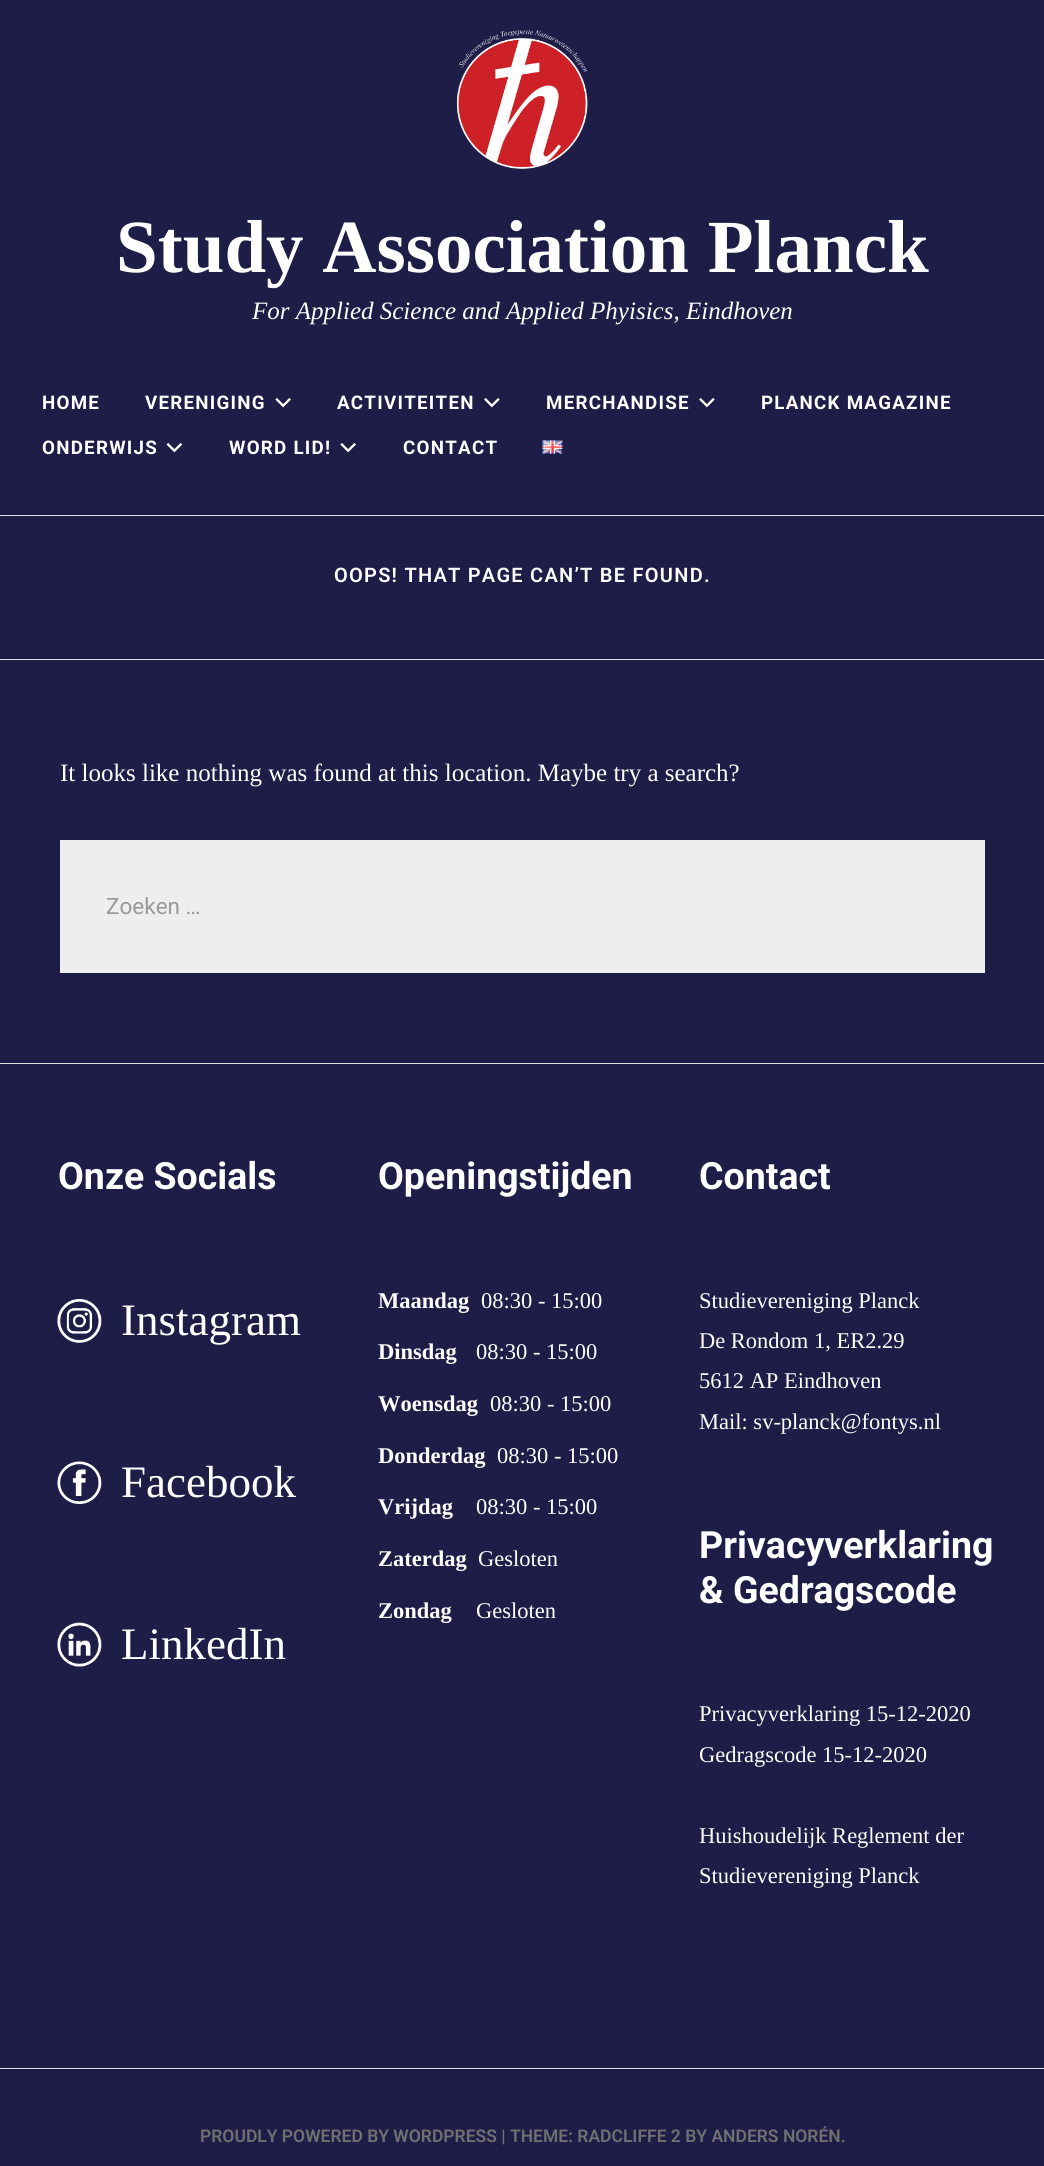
import math
import cairo


def write_spaced(ctx, x, y, s, letter, word):
	ctx.move_to(x, y)
	for ch in s:
		ctx.show_text(ch)
		ctx.rel_move_to(letter + word * (ch == ' '), 0)

def paste(ctx, path, x, y, w, h):
	ctx.save()
	ctx.set_source_surface(cairo.ImageSurface.create_from_png(path), x, y)
	ctx.rectangle(x, y, w, h)
	ctx.fill()
	ctx.restore()

def draw(ctx):
	ctx.set_source_rgb(0.118, 0.114, 0.278)
	ctx.paint()
	paste(ctx, 'media/1.png', 456, 30, 132, 139)
	ctx.select_font_face('Liberation Serif', cairo.FONT_SLANT_NORMAL, cairo.FONT_WEIGHT_BOLD)
	ctx.set_font_size(75)
	ctx.set_source_rgb(1, 1, 1)
	ctx.move_to(116, 272)
	ctx.show_text('Study Association Planck')
	ctx.select_font_face('Liberation Serif', cairo.FONT_SLANT_ITALIC)
	ctx.set_font_size(25)
	ctx.move_to(252, 319)
	ctx.show_text('For Applied Science and Applied Phyisics, Eindhoven')
	ctx.select_font_face('Roboto', cairo.FONT_SLANT_NORMAL, cairo.FONT_WEIGHT_BOLD)
	ctx.set_font_size(18.75)
	write_spaced(ctx, 42, 409, 'HOME', 1.25, 0)
	write_spaced(ctx, 145, 409, 'VERENIGING', 1.25, 0)
	paste(ctx, 'media/2.png', 275, 398, 16, 10)
	write_spaced(ctx, 337, 409, 'ACTIVITEITEN', 1.25, 0)
	paste(ctx, 'media/3.png', 484, 398, 16, 10)
	write_spaced(ctx, 546, 409, 'MERCHANDISE', 1.25, 0)
	paste(ctx, 'media/3.png', 699, 398, 16, 10)
	write_spaced(ctx, 761, 409, 'PLANCK MAGAZINE', 1.25, 0)
	write_spaced(ctx, 42, 454, 'ONDERWIJS', 1.25, 0)
	paste(ctx, 'media/4.png', 166, 443, 17, 10)
	write_spaced(ctx, 229, 454, 'WORD LID!', 1.25, 0)
	paste(ctx, 'media/2.png', 340, 443, 16, 10)
	write_spaced(ctx, 403, 454, 'CONTACT', 1.25, 0)
	paste(ctx, 'media/5.png', 542, 440, 21, 14)
	ctx.set_source_rgb(0.867, 0.867, 0.867)
	ctx.rectangle(0, 515, 1044, 1)
	ctx.fill()
	ctx.rectangle(0, 659, 1044, 1)
	ctx.fill()
	ctx.select_font_face('Roboto SemiBold')
	ctx.set_font_size(20)
	ctx.set_source_rgb(1, 1, 1)
	write_spaced(ctx, 334, 582, 'OOPS! THAT PAGE CAN’T BE FOUND.', 1.25, 0)
	ctx.select_font_face('Liberation Serif')
	ctx.set_font_size(25)
	ctx.move_to(60, 781)
	ctx.show_text('It looks like nothing was found at this location. Maybe try a search?')
	ctx.set_source_rgb(0.933, 0.933, 0.933)
	ctx.rectangle(60, 840, 925, 133)
	ctx.fill()
	ctx.select_font_face('Roboto')
	ctx.set_font_size(22.5)
	ctx.set_source_rgb(0.6, 0.6, 0.6)
	ctx.move_to(106, 914)
	ctx.show_text('Zoeken …')
	ctx.set_source_rgb(0.867, 0.867, 0.867)
	ctx.rectangle(0, 1063, 1044, 1)
	ctx.fill()
	ctx.select_font_face('Roboto', cairo.FONT_SLANT_NORMAL, cairo.FONT_WEIGHT_BOLD)
	ctx.set_font_size(37.5)
	ctx.set_source_rgb(1, 1, 1)
	ctx.move_to(58, 1189)
	ctx.show_text('Onze Socials')
	paste(ctx, 'media/6.png', 57, 1299, 45, 44)
	ctx.select_font_face('Liberation Serif')
	ctx.set_font_size(45)
	ctx.move_to(121, 1335)
	ctx.show_text('Instagram')
	paste(ctx, 'media/7.png', 57, 1461, 45, 43)
	ctx.move_to(121, 1497)
	ctx.show_text('Facebook')
	paste(ctx, 'media/8.png', 57, 1622, 45, 45)
	ctx.move_to(121, 1659)
	ctx.show_text('LinkedIn')
	ctx.select_font_face('Roboto', cairo.FONT_SLANT_NORMAL, cairo.FONT_WEIGHT_BOLD)
	ctx.set_font_size(37.5)
	ctx.move_to(378, 1189)
	ctx.show_text('Openingstijden')
	ctx.select_font_face('Liberation Serif', cairo.FONT_SLANT_NORMAL, cairo.FONT_WEIGHT_BOLD)
	ctx.set_font_size(22.5)
	ctx.move_to(378, 1308)
	ctx.show_text('Maandag')
	ctx.select_font_face('Liberation Serif')
	ctx.move_to(481, 1308)
	ctx.show_text('08:30 - 15:00')
	ctx.select_font_face('Liberation Serif', cairo.FONT_SLANT_NORMAL, cairo.FONT_WEIGHT_BOLD)
	ctx.move_to(378, 1359)
	ctx.show_text('Dinsdag')
	ctx.select_font_face('Liberation Serif')
	ctx.move_to(476, 1359)
	ctx.show_text('08:30 - 15:00')
	ctx.select_font_face('Liberation Serif', cairo.FONT_SLANT_NORMAL, cairo.FONT_WEIGHT_BOLD)
	ctx.move_to(378, 1411)
	ctx.show_text('Woensdag')
	ctx.select_font_face('Liberation Serif')
	ctx.move_to(490, 1411)
	ctx.show_text('08:30 - 15:00')
	ctx.select_font_face('Liberation Serif', cairo.FONT_SLANT_NORMAL, cairo.FONT_WEIGHT_BOLD)
	ctx.move_to(378, 1463)
	ctx.show_text('Donderdag')
	ctx.select_font_face('Liberation Serif')
	ctx.move_to(497, 1463)
	ctx.show_text('08:30 - 15:00')
	ctx.select_font_face('Liberation Serif', cairo.FONT_SLANT_NORMAL, cairo.FONT_WEIGHT_BOLD)
	ctx.move_to(378, 1514)
	ctx.show_text('Vrijdag')
	ctx.select_font_face('Liberation Serif')
	ctx.move_to(476, 1514)
	ctx.show_text('08:30 - 15:00')
	ctx.select_font_face('Liberation Serif', cairo.FONT_SLANT_NORMAL, cairo.FONT_WEIGHT_BOLD)
	ctx.move_to(378, 1566)
	ctx.show_text('Zaterdag')
	ctx.select_font_face('Liberation Serif')
	ctx.move_to(478, 1566)
	ctx.show_text('Gesloten')
	ctx.select_font_face('Liberation Serif', cairo.FONT_SLANT_NORMAL, cairo.FONT_WEIGHT_BOLD)
	ctx.move_to(378, 1618)
	ctx.show_text('Zondag')
	ctx.select_font_face('Liberation Serif')
	ctx.move_to(476, 1618)
	ctx.show_text('Gesloten')
	ctx.select_font_face('Roboto', cairo.FONT_SLANT_NORMAL, cairo.FONT_WEIGHT_BOLD)
	ctx.set_font_size(37.5)
	ctx.move_to(699, 1189)
	ctx.show_text('Contact')
	ctx.select_font_face('Liberation Serif')
	ctx.set_font_size(22.5)
	for x, y, s in [
		(699, 1308, 'Studievereniging Planck'),
		(699, 1348, 'De Rondom 1, ER2.29'),
		(699, 1388, '5612 AP Eindhoven'),
		(699, 1429, 'Mail: sv-planck@fontys.nl'),
	]:
		ctx.move_to(x, y)
		ctx.show_text(s)
	ctx.select_font_face('Roboto', cairo.FONT_SLANT_NORMAL, cairo.FONT_WEIGHT_BOLD)
	ctx.set_font_size(37.5)
	ctx.move_to(699, 1558)
	ctx.show_text('Privacyverklaring')
	ctx.move_to(699, 1603)
	ctx.show_text('& Gedragscode')
	ctx.select_font_face('Liberation Serif')
	ctx.set_font_size(22.5)
	for x, y, s in [
		(699, 1721, 'Privacyverklaring 15-12-2020'),
		(699, 1762, 'Gedragscode 15-12-2020'),
		(699, 1843, 'Huishoudelijk Reglement der'),
		(699, 1883, 'Studievereniging Planck'),
	]:
		ctx.move_to(x, y)
		ctx.show_text(s)
	ctx.set_source_rgb(0.867, 0.867, 0.867)
	ctx.rectangle(0, 2068, 1044, 1)
	ctx.fill()
	ctx.select_font_face('Roboto SemiBold')
	ctx.set_font_size(17.5)
	ctx.set_source_rgb(0.439, 0.439, 0.439)
	ctx.move_to(200, 2142)
	ctx.show_text('PROUDLY POWERED BY WORDPRESS | THEME: RADCLIFFE 2 BY ANDERS NORÉN.')


surface = cairo.ImageSurface(cairo.FORMAT_RGB24, 1044, 2166)
ctx = cairo.Context(surface)
options = cairo.FontOptions()
options.set_hint_metrics(cairo.HINT_METRICS_OFF)
options.set_hint_style(cairo.HINT_STYLE_NONE)
ctx.set_font_options(options)
ctx.set_miter_limit(4)
draw(ctx)
surface.write_to_png('image.png')
